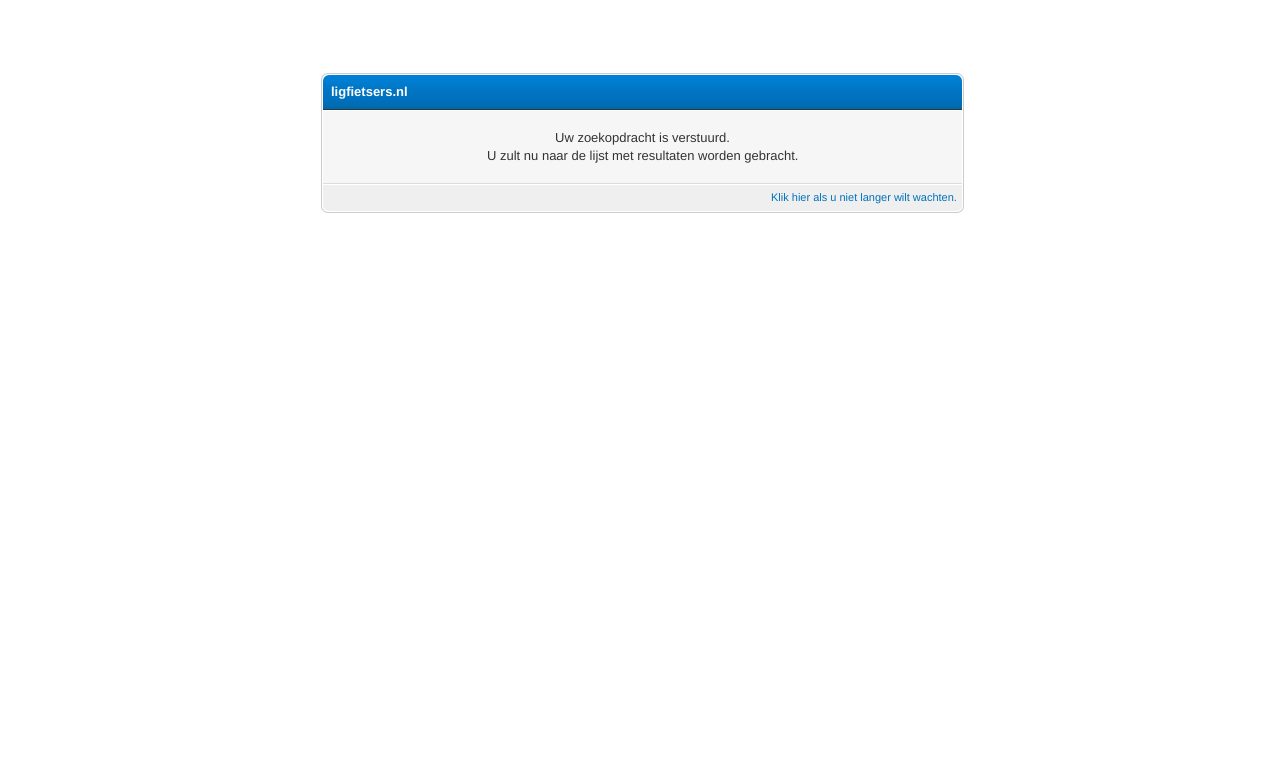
import math
import cairo


def round_path(ctx, x, y, w, h, r):
	ctx.new_sub_path()
	for i, (u, v) in enumerate([(x + w - r, y + h - r), (x + r, y + h - r), (x + r, y + r), (x + w - r, y + r)]):
		ctx.arc(u, v, r, i * math.pi / 2, (i + 1) * math.pi / 2)
	ctx.close_path()

def paste(ctx, path, x, y, w, h):
	ctx.save()
	ctx.set_source_surface(cairo.ImageSurface.create_from_png(path), x, y)
	ctx.rectangle(x, y, w, h)
	ctx.fill()
	ctx.restore()

def draw(ctx):
	ctx.set_source_rgb(1, 1, 1)
	ctx.paint()
	round_path(ctx, 321.5, 73.5, 642, 139, 6.5)
	ctx.set_source_rgb(0.8, 0.8, 0.8)
	ctx.set_line_width(1)
	ctx.stroke()
	paste(ctx, 'media/1.png', 323, 75, 639, 34)
	ctx.set_source_rgb(0.149, 0.235, 0.188)
	ctx.rectangle(323, 109, 639, 1)
	ctx.fill()
	ctx.select_font_face('Liberation Sans', cairo.FONT_SLANT_NORMAL, cairo.FONT_WEIGHT_BOLD)
	ctx.set_font_size(13)
	ctx.set_source_rgb(1, 1, 1)
	ctx.move_to(331, 96)
	ctx.show_text('ligfietsers.nl')
	ctx.set_source_rgb(0.961, 0.961, 0.961)
	ctx.rectangle(323, 111, 639, 72)
	ctx.fill()
	ctx.set_source_rgb(0.867, 0.867, 0.867)
	ctx.rectangle(323, 183, 639, 1)
	ctx.fill()
	ctx.select_font_face('Liberation Sans')
	ctx.set_source_rgb(0.2, 0.2, 0.2)
	ctx.move_to(555, 142)
	ctx.show_text('Uw zoekopdracht is verstuurd.')
	ctx.move_to(487, 160)
	ctx.show_text('U zult nu naar de lijst met resultaten worden gebracht.')
	ctx.set_source_rgb(0.937, 0.937, 0.937)
	ctx.new_path()
	ctx.move_to(323, 184)
	ctx.line_to(962, 184)
	ctx.line_to(962, 205)
	ctx.curve_to(962, 208.5, 959.5, 211, 956, 211)
	ctx.line_to(329, 211)
	ctx.curve_to(325.5, 211, 323, 208.5, 323, 205)
	ctx.close_path()
	ctx.fill()
	ctx.set_source_rgb(1, 1, 1)
	ctx.rectangle(323, 184, 639, 1)
	ctx.fill()
	ctx.set_font_size(11)
	ctx.set_source_rgb(0, 0.447, 0.737)
	ctx.move_to(771, 201)
	ctx.show_text('Klik hier als u niet langer wilt wachten.')


surface = cairo.ImageSurface(cairo.FORMAT_RGB24, 1285, 760)
ctx = cairo.Context(surface)
options = cairo.FontOptions()
options.set_hint_metrics(cairo.HINT_METRICS_OFF)
options.set_hint_style(cairo.HINT_STYLE_NONE)
ctx.set_font_options(options)
ctx.set_miter_limit(4)
draw(ctx)
surface.write_to_png('image.png')
